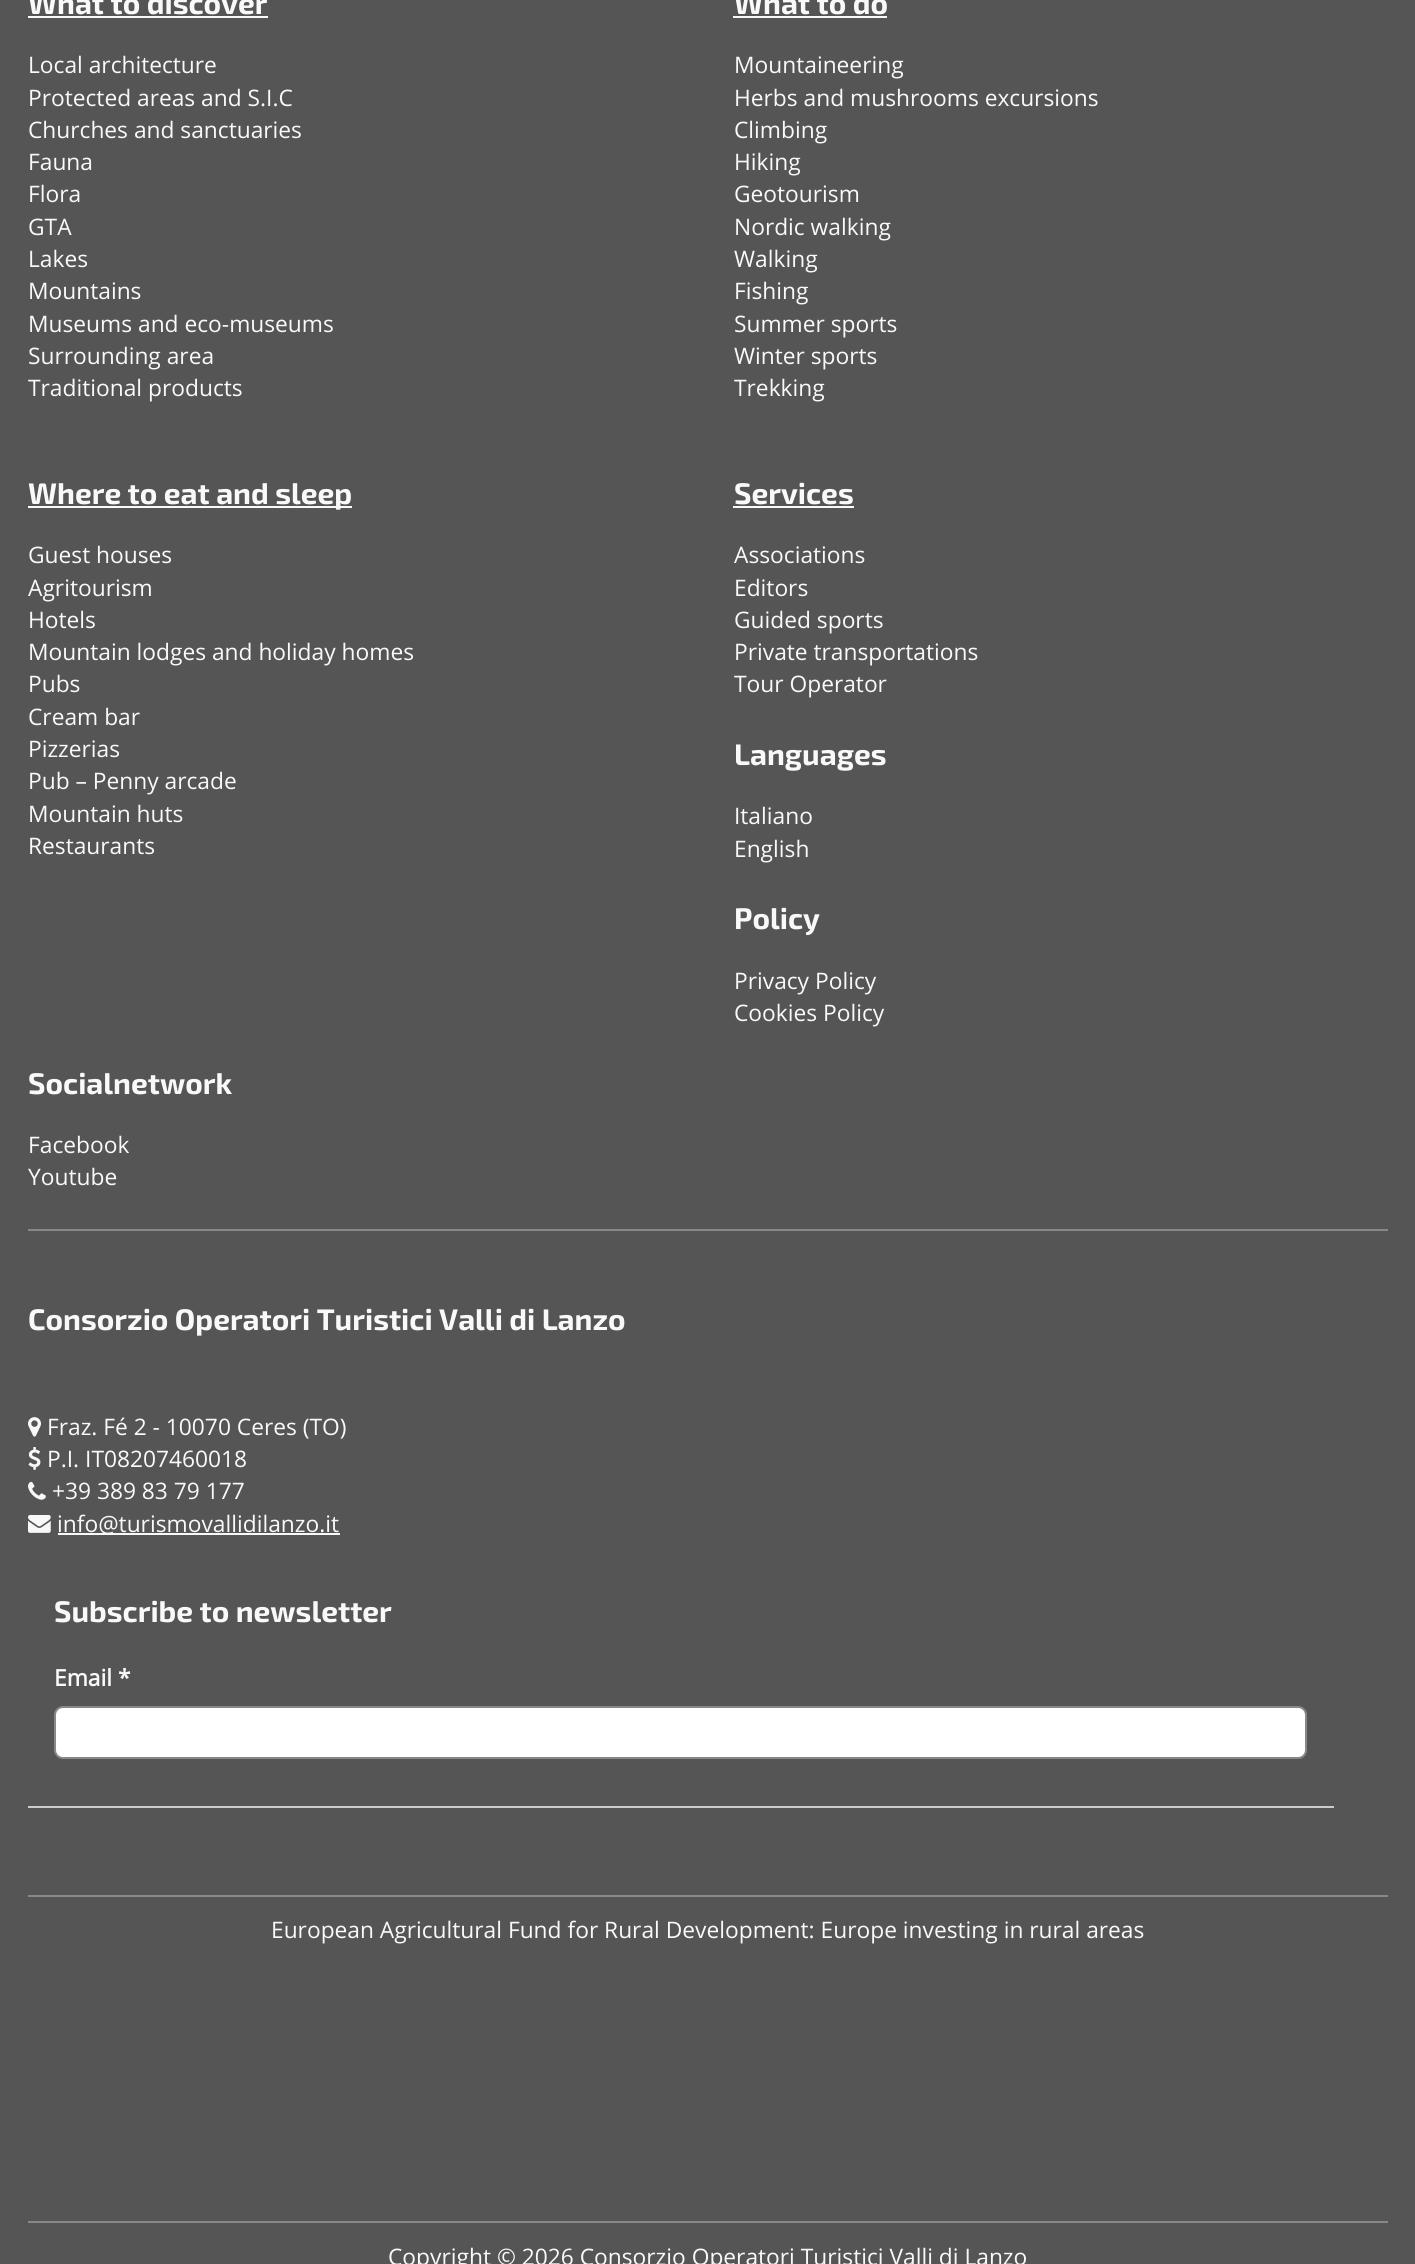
import math
import cairo


def round_path(ctx, x, y, w, h, r):
	ctx.new_sub_path()
	for i, (u, v) in enumerate([(x + w - r, y + h - r), (x + r, y + h - r), (x + r, y + r), (x + w - r, y + r)]):
		ctx.arc(u, v, r, i * math.pi / 2, (i + 1) * math.pi / 2)
	ctx.close_path()

def paste(ctx, path, x, y, w, h):
	ctx.save()
	ctx.set_source_surface(cairo.ImageSurface.create_from_png(path), x, y)
	ctx.rectangle(x, y, w, h)
	ctx.fill()
	ctx.restore()

def draw(ctx):
	ctx.set_source_rgb(0.333, 0.333, 0.333)
	ctx.paint()
	ctx.set_source_rgb(0.533, 0.533, 0.533)
	ctx.rectangle(28, 1229, 1360, 2)
	ctx.fill()
	ctx.select_font_face('Exo 2', cairo.FONT_SLANT_NORMAL, cairo.FONT_WEIGHT_BOLD)
	ctx.set_font_size(29.75)
	ctx.set_source_rgb(0.973, 0.973, 0.973)
	ctx.move_to(28, 14)
	ctx.show_text('What to discover')
	ctx.rectangle(28, 16, 240, 2)
	ctx.fill()
	ctx.select_font_face('Open Sans')
	ctx.set_font_size(22.75)
	for x, y, s in [
		(28, 73, 'Local architecture'),
		(28, 106, 'Protected areas and S.I.C'),
		(28, 138, 'Churches and sanctuaries'),
		(28, 170, 'Fauna'),
		(28, 202, 'Flora'),
		(28, 235, 'GTA'),
		(28, 267, 'Lakes'),
		(28, 299, 'Mountains'),
		(28, 332, 'Museums and eco-museums'),
		(28, 364, 'Surrounding area'),
		(28, 396, 'Traditional products'),
	]:
		ctx.move_to(x, y)
		ctx.show_text(s)
	ctx.select_font_face('Exo 2', cairo.FONT_SLANT_NORMAL, cairo.FONT_WEIGHT_BOLD)
	ctx.set_font_size(29.75)
	ctx.move_to(734, 14)
	ctx.show_text('What to do')
	ctx.rectangle(733, 16, 154, 2)
	ctx.fill()
	ctx.select_font_face('Open Sans')
	ctx.set_font_size(22.75)
	for x, y, s in [
		(734, 73, 'Mountaineering'),
		(734, 106, 'Herbs and mushrooms excursions'),
		(734, 138, 'Climbing'),
		(734, 170, 'Hiking'),
		(734, 202, 'Geotourism'),
		(734, 235, 'Nordic walking'),
		(734, 267, 'Walking'),
		(734, 299, 'Fishing'),
		(734, 332, 'Summer sports'),
		(734, 364, 'Winter sports'),
		(734, 396, 'Trekking'),
	]:
		ctx.move_to(x, y)
		ctx.show_text(s)
	ctx.rectangle(28, 506, 324, 2)
	ctx.fill()
	ctx.select_font_face('Exo 2', cairo.FONT_SLANT_NORMAL, cairo.FONT_WEIGHT_BOLD)
	ctx.set_font_size(29.75)
	ctx.move_to(28, 504)
	ctx.show_text('Where to eat and sleep')
	ctx.select_font_face('Open Sans')
	ctx.set_font_size(22.75)
	for x, y, s in [
		(28, 563, 'Guest houses'),
		(28, 596, 'Agritourism'),
		(28, 628, 'Hotels'),
		(28, 660, 'Mountain lodges and holiday homes'),
		(28, 692, 'Pubs'),
		(28, 725, 'Cream bar'),
		(28, 757, 'Pizzerias'),
		(28, 789, 'Pub – Penny arcade'),
		(28, 822, 'Mountain huts'),
		(28, 854, 'Restaurants'),
	]:
		ctx.move_to(x, y)
		ctx.show_text(s)
	ctx.select_font_face('Exo 2', cairo.FONT_SLANT_NORMAL, cairo.FONT_WEIGHT_BOLD)
	ctx.set_font_size(29.75)
	ctx.move_to(734, 504)
	ctx.show_text('Services')
	ctx.rectangle(733, 506, 121, 2)
	ctx.fill()
	ctx.select_font_face('Open Sans')
	ctx.set_font_size(22.75)
	for x, y, s in [
		(734, 563, 'Associations'),
		(734, 596, 'Editors'),
		(734, 628, 'Guided sports'),
		(734, 660, 'Private transportations'),
		(734, 692, 'Tour Operator'),
	]:
		ctx.move_to(x, y)
		ctx.show_text(s)
	ctx.select_font_face('Exo 2', cairo.FONT_SLANT_NORMAL, cairo.FONT_WEIGHT_BOLD)
	ctx.set_font_size(29.75)
	ctx.move_to(734, 765)
	ctx.show_text('Languages')
	ctx.select_font_face('Open Sans')
	ctx.set_font_size(22.75)
	ctx.move_to(734, 824)
	ctx.show_text('Italiano')
	ctx.move_to(734, 857)
	ctx.show_text('English')
	ctx.select_font_face('Exo 2', cairo.FONT_SLANT_NORMAL, cairo.FONT_WEIGHT_BOLD)
	ctx.set_font_size(29.75)
	ctx.move_to(734, 929)
	ctx.show_text('Policy')
	ctx.select_font_face('Open Sans')
	ctx.set_font_size(22.75)
	ctx.move_to(734, 989)
	ctx.show_text('Privacy Policy')
	ctx.move_to(734, 1021)
	ctx.show_text('Cookies Policy')
	ctx.select_font_face('Exo 2', cairo.FONT_SLANT_NORMAL, cairo.FONT_WEIGHT_BOLD)
	ctx.set_font_size(29.75)
	ctx.move_to(28, 1094)
	ctx.show_text('Socialnetwork')
	ctx.select_font_face('Open Sans')
	ctx.set_font_size(22.75)
	ctx.move_to(28, 1153)
	ctx.show_text('Facebook')
	ctx.move_to(28, 1185)
	ctx.show_text('Youtube')
	ctx.set_source_rgb(0.533, 0.533, 0.533)
	ctx.rectangle(28, 1895, 1360, 2)
	ctx.fill()
	ctx.select_font_face('Exo 2', cairo.FONT_SLANT_NORMAL, cairo.FONT_WEIGHT_BOLD)
	ctx.set_font_size(29.75)
	ctx.set_source_rgb(0.973, 0.973, 0.973)
	ctx.move_to(28, 1330)
	ctx.show_text('Consorzio Operatori Turistici Valli di Lanzo')
	paste(ctx, 'media/1.png', 28, 1417, 13, 20)
	ctx.select_font_face('Open Sans')
	ctx.set_font_size(22.75)
	ctx.move_to(47, 1435)
	ctx.show_text('Fraz. Fé 2 - 10070 Ceres (TO)')
	paste(ctx, 'media/2.png', 28, 1447, 13, 23)
	ctx.move_to(47, 1467)
	ctx.show_text('P.I. IT08207460018')
	paste(ctx, 'media/3.png', 28, 1481, 18, 19)
	ctx.move_to(52, 1499)
	ctx.show_text('+39 389 83 79 177')
	paste(ctx, 'media/4.png', 28, 1515, 23, 18)
	ctx.rectangle(58, 1533, 282, 2)
	ctx.fill()
	ctx.move_to(57, 1532)
	ctx.show_text('info@turismovallidilanzo.it')
	ctx.set_source_rgb(0.8, 0.8, 0.8)
	ctx.rectangle(28, 1806, 1306, 2)
	ctx.fill()
	ctx.select_font_face('Exo 2', cairo.FONT_SLANT_NORMAL, cairo.FONT_WEIGHT_BOLD)
	ctx.set_font_size(29.75)
	ctx.set_source_rgb(0.973, 0.973, 0.973)
	ctx.move_to(54, 1622)
	ctx.show_text('Subscribe to newsletter')
	ctx.select_font_face('Open Sans', cairo.FONT_SLANT_NORMAL, cairo.FONT_WEIGHT_BOLD)
	ctx.set_font_size(22.75)
	ctx.move_to(54, 1686)
	ctx.show_text('Email *')
	ctx.set_source_rgb(1, 1, 1)
	round_path(ctx, 55, 1707, 1251, 51, 8)
	ctx.fill_preserve()
	ctx.set_source_rgb(0.533, 0.533, 0.533)
	ctx.stroke()
	ctx.rectangle(28, 2221, 1360, 2)
	ctx.fill()
	ctx.select_font_face('Open Sans')
	ctx.set_source_rgb(0.973, 0.973, 0.973)
	ctx.move_to(271, 1938)
	ctx.show_text('European Agricultural Fund for Rural Development: Europe investing in rural areas')
	ctx.move_to(388, 2265)
	ctx.show_text('Copyright © 2026 Consorzio Operatori Turistici Valli di Lanzo')


surface = cairo.ImageSurface(cairo.FORMAT_RGB24, 1415, 2264)
ctx = cairo.Context(surface)
options = cairo.FontOptions()
options.set_hint_metrics(cairo.HINT_METRICS_OFF)
options.set_hint_style(cairo.HINT_STYLE_NONE)
ctx.set_font_options(options)
ctx.set_miter_limit(4)
draw(ctx)
surface.write_to_png('image.png')
